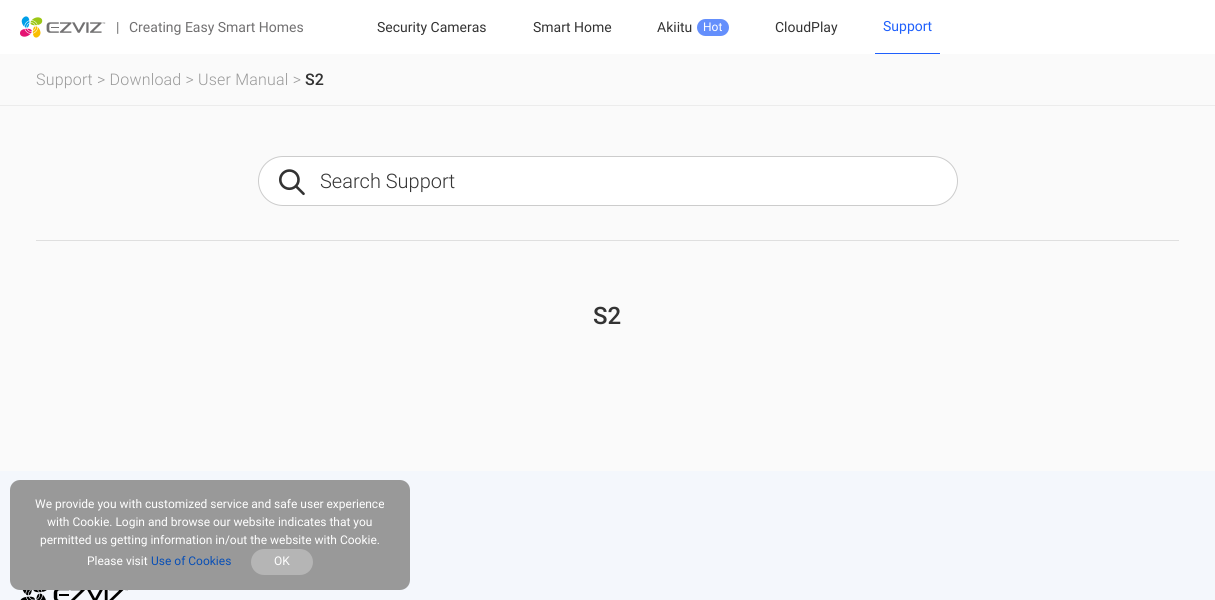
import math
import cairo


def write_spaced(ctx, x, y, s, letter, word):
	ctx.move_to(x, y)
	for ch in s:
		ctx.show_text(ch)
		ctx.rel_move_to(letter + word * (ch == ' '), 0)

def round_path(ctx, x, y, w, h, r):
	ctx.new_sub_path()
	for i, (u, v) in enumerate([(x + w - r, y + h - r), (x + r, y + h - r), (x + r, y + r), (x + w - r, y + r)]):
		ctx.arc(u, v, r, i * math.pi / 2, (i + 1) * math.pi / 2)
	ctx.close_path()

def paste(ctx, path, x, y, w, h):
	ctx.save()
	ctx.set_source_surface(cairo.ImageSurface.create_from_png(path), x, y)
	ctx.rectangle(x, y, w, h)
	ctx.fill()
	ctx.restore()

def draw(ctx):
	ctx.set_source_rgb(1, 1, 1)
	ctx.paint()
	paste(ctx, 'media/1.png', 20, 16, 86, 22)
	ctx.select_font_face('Roboto')
	ctx.set_font_size(14)
	ctx.set_source_rgb(0.443, 0.439, 0.443)
	ctx.move_to(116, 32)
	ctx.show_text('|')
	ctx.move_to(129, 32)
	ctx.show_text('Creating Easy Smart Homes')
	ctx.set_source_rgb(0.2, 0.2, 0.2)
	for x, y, s in [
		(377, 32, 'Security Cameras'),
		(533, 32, 'Smart Home'),
		(657, 32, 'Akiitu'),
	]:
		ctx.move_to(x, y)
		ctx.show_text(s)
	ctx.set_source_rgb(0.392, 0.561, 0.988)
	round_path(ctx, 697, 19, 32, 17, 8.5)
	ctx.fill()
	ctx.set_font_size(12)
	ctx.set_source_rgb(1, 1, 1)
	ctx.move_to(703, 31)
	ctx.show_text('Hot')
	ctx.set_font_size(14)
	ctx.set_source_rgb(0.2, 0.2, 0.2)
	ctx.move_to(775, 32)
	ctx.show_text('CloudPlay')
	ctx.set_source_rgb(0.122, 0.376, 0.988)
	ctx.rectangle(875, 53, 65, 1)
	ctx.fill()
	ctx.move_to(883, 31)
	ctx.show_text('Support')
	ctx.set_source_rgb(0.98, 0.98, 0.98)
	ctx.rectangle(0, 54, 1215, 417)
	ctx.fill()
	ctx.select_font_face('Roboto Light')
	ctx.set_font_size(16)
	ctx.set_source_rgb(0.6, 0.6, 0.6)
	write_spaced(ctx, 36, 85, 'Support > Download > User Manual >', 0.2, 0)
	ctx.select_font_face('Roboto Medium')
	ctx.set_source_rgb(0.2, 0.2, 0.2)
	write_spaced(ctx, 305, 85, 'S2', 0.2, 0)
	ctx.set_source_rgb(0.922, 0.922, 0.922)
	ctx.rectangle(0, 105, 1215, 1)
	ctx.fill()
	ctx.set_source_rgb(1, 1, 1)
	round_path(ctx, 258.5, 156.5, 699, 49, 24.5)
	ctx.fill_preserve()
	ctx.set_source_rgb(0.8, 0.8, 0.8)
	ctx.set_line_width(1)
	ctx.stroke()
	paste(ctx, 'media/2.png', 279, 169, 26, 27)
	ctx.select_font_face('Roboto Light')
	ctx.set_font_size(20)
	ctx.set_source_rgb(0.2, 0.2, 0.2)
	ctx.move_to(320, 188)
	ctx.show_text('Search Support')
	ctx.set_source_rgb(0.875, 0.875, 0.875)
	ctx.rectangle(36, 240, 1143, 1)
	ctx.fill()
	ctx.select_font_face('Roboto Medium')
	ctx.set_font_size(24)
	ctx.set_source_rgb(0.2, 0.2, 0.2)
	ctx.move_to(593, 324)
	ctx.show_text('S2')
	ctx.set_source_rgb(0.957, 0.965, 0.988)
	ctx.rectangle(0, 471, 1215, 129)
	ctx.fill()
	paste(ctx, 'media/3.png', 20, 590, 108, 10)
	ctx.set_source_rgb(0.6, 0.6, 0.6)
	round_path(ctx, 10, 480, 400, 110, 10)
	ctx.fill()
	ctx.select_font_face('Roboto')
	ctx.set_font_size(12)
	ctx.set_source_rgb(1, 1, 1)
	for x, y, s in [
		(35, 508, 'We provide you with customized service and safe user experience'),
		(47, 526, 'with Cookie. Login and browse our website indicates that you'),
		(40, 544, 'permitted us getting information in/out the website with Cookie.'),
		(87, 565, 'Please visit'),
	]:
		ctx.move_to(x, y)
		ctx.show_text(s)
	ctx.set_source_rgb(0.035, 0.31, 0.714)
	ctx.move_to(151, 565)
	ctx.show_text('Use of Cookies')
	ctx.set_source_rgb(0.71, 0.71, 0.71)
	round_path(ctx, 251, 549, 62, 26, 13)
	ctx.fill()
	ctx.set_source_rgb(1, 1, 1)
	ctx.move_to(274, 565)
	ctx.show_text('OK')


surface = cairo.ImageSurface(cairo.FORMAT_RGB24, 1215, 600)
ctx = cairo.Context(surface)
options = cairo.FontOptions()
options.set_hint_metrics(cairo.HINT_METRICS_OFF)
options.set_hint_style(cairo.HINT_STYLE_NONE)
ctx.set_font_options(options)
ctx.set_miter_limit(4)
draw(ctx)
surface.write_to_png('image.png')
